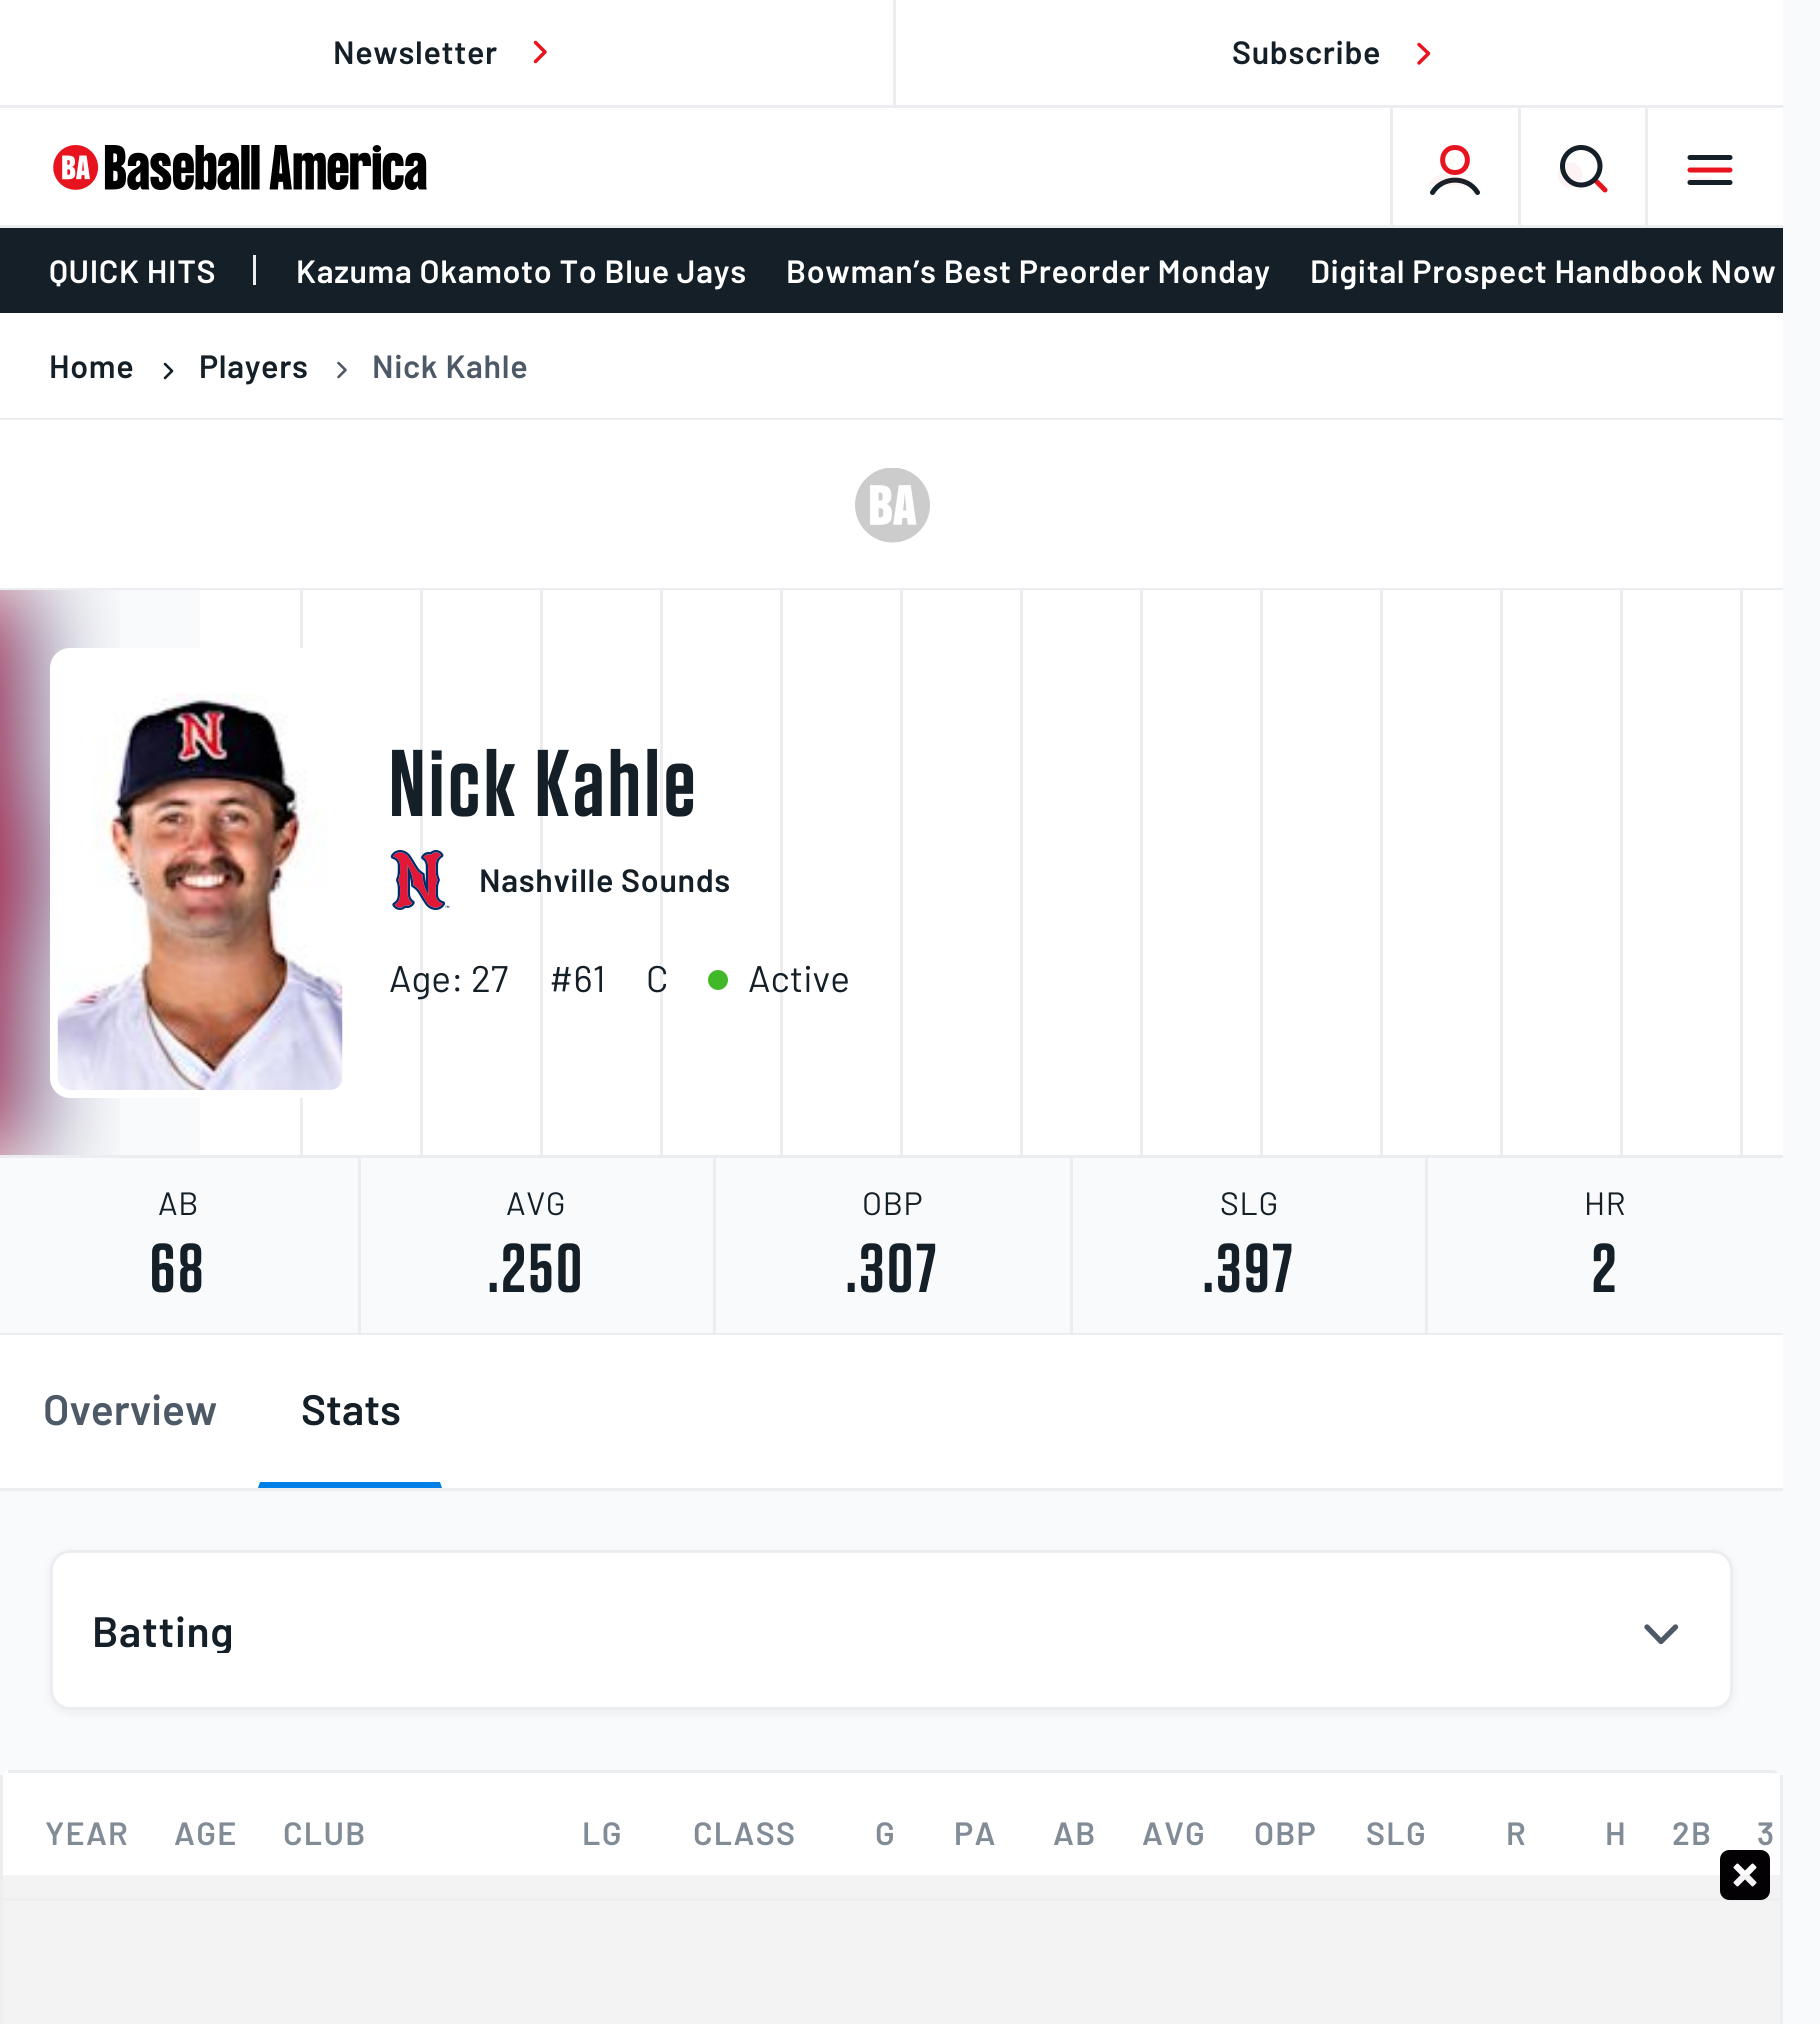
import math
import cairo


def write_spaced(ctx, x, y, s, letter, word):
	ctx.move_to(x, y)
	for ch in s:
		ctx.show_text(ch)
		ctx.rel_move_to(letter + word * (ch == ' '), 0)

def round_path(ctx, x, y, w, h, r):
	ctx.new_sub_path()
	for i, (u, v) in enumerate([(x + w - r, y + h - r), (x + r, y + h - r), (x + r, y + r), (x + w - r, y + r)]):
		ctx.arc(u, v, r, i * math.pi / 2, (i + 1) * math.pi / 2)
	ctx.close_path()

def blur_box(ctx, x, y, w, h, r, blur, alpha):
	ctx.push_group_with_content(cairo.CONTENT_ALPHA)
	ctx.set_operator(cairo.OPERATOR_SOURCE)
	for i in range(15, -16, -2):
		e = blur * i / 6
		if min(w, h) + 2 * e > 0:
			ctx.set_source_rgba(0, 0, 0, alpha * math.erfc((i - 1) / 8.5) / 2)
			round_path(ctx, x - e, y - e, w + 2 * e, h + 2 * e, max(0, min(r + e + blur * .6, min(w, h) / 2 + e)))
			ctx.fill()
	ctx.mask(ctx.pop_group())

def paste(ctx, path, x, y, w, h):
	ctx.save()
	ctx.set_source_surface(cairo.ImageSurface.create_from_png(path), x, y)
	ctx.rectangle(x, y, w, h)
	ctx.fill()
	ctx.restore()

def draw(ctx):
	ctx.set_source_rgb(0.976, 0.98, 0.984)
	ctx.paint()
	ctx.set_source_rgb(1, 1, 1)
	ctx.rectangle(0, 0, 1783, 105)
	ctx.fill()
	ctx.set_source_rgb(0.918, 0.929, 0.945)
	ctx.rectangle(0, 105, 1783, 3)
	ctx.fill()
	ctx.select_font_face('Barlow SemiBold')
	ctx.set_font_size(32.25)
	ctx.set_source_rgb(0.082, 0.122, 0.157)
	write_spaced(ctx, 333, 64, 'Newsletter', 0.65, 0)
	ctx.new_path()
	ctx.move_to(535.5, 61.5)
	ctx.line_to(545, 52)
	ctx.line_to(535.5, 42.5)
	ctx.set_source_rgb(0.906, 0.078, 0.122)
	ctx.set_line_width(3.5)
	ctx.set_line_cap(cairo.LINE_CAP_ROUND)
	ctx.set_line_join(cairo.LINE_JOIN_ROUND)
	ctx.stroke()
	ctx.set_source_rgb(0.918, 0.929, 0.945)
	ctx.rectangle(893, 0, 3, 105)
	ctx.fill()
	ctx.set_source_rgb(0.082, 0.122, 0.157)
	write_spaced(ctx, 1232, 64, 'Subscribe', 0.65, 0)
	ctx.new_path()
	ctx.move_to(1419, 63)
	ctx.line_to(1428.5, 53.5)
	ctx.line_to(1419, 44.5)
	ctx.set_source_rgb(0.906, 0.078, 0.122)
	ctx.stroke()
	ctx.set_source_rgb(1, 1, 1)
	ctx.rectangle(0, 108, 1783, 117)
	ctx.fill()
	ctx.set_source_rgb(0.918, 0.929, 0.945)
	ctx.rectangle(0, 225, 1783, 3)
	ctx.fill()
	paste(ctx, 'media/1.png', 53, 145, 374, 45)
	ctx.rectangle(1390, 108, 3, 117)
	ctx.fill()
	ctx.new_path()
	ctx.move_to(1432.5, 192.5)
	ctx.curve_to(1442.5, 176, 1467.5, 176, 1477.5, 192.5)
	ctx.set_source_rgb(0.082, 0.122, 0.157)
	ctx.set_line_width(5)
	ctx.stroke()
	ctx.new_path()
	ctx.move_to(1455, 172.5)
	ctx.curve_to(1471.5, 172.5, 1471.5, 147.5, 1455, 147.5)
	ctx.curve_to(1438.5, 147.5, 1438.5, 172.5, 1455, 172.5)
	ctx.close_path()
	ctx.set_source_rgb(0.906, 0.078, 0.122)
	ctx.set_line_cap(cairo.LINE_CAP_BUTT)
	ctx.set_line_join(cairo.LINE_JOIN_MITER)
	ctx.stroke()
	ctx.set_source_rgba(0.906, 0.078, 0.122, 0.05)
	ctx.new_path()
	ctx.move_to(1428, 185)
	ctx.curve_to(1437, 169, 1461, 169, 1470, 185)
	ctx.fill()
	ctx.set_source_rgb(0.918, 0.929, 0.945)
	ctx.rectangle(1518, 108, 3, 117)
	ctx.fill()
	ctx.set_source_rgb(0.996, 0.953, 0.957)
	ctx.new_path()
	ctx.move_to(1570, 187.5)
	ctx.curve_to(1586.5, 187.5, 1586.5, 162.5, 1570, 162.5)
	ctx.curve_to(1553.5, 162.5, 1553.5, 187.5, 1570, 187.5)
	ctx.close_path()
	ctx.fill()
	ctx.new_path()
	ctx.move_to(1595, 180)
	ctx.line_to(1605, 190)
	ctx.set_source_rgb(0.906, 0.078, 0.122)
	ctx.set_line_cap(cairo.LINE_CAP_ROUND)
	ctx.set_line_join(cairo.LINE_JOIN_ROUND)
	ctx.stroke()
	ctx.new_path()
	ctx.move_to(1581, 185)
	ctx.curve_to(1591.5, 185, 1600, 176.5, 1600, 166)
	ctx.curve_to(1600, 156, 1591.5, 147.5, 1581, 147.5)
	ctx.curve_to(1571, 147.5, 1562.5, 156, 1562.5, 166)
	ctx.curve_to(1562.5, 176.5, 1571, 185, 1581, 185)
	ctx.close_path()
	ctx.set_source_rgb(0.082, 0.122, 0.157)
	ctx.stroke()
	ctx.set_source_rgb(0.918, 0.929, 0.945)
	ctx.rectangle(1645, 108, 3, 117)
	ctx.fill()
	paste(ctx, 'media/2.png', 1685, 155, 48, 30)
	ctx.set_source_rgb(0.082, 0.122, 0.157)
	ctx.rectangle(0, 228, 1783, 85)
	ctx.fill()
	ctx.set_source_rgb(1, 1, 1)
	write_spaced(ctx, 49, 283, 'QUICK HITS', 0.65, 0)
	ctx.set_source_rgb(0.918, 0.929, 0.945)
	ctx.rectangle(253, 255, 3, 30)
	ctx.fill()
	ctx.set_source_rgb(1, 1, 1)
	for x, y, s in [
		(296, 283, 'Kazuma Okamoto To Blue Jays'),
		(786, 283, 'Bowman’s Best Preorder Monday'),
		(1310, 283, 'Digital Prospect Handbook Now'),
	]:
		write_spaced(ctx, x, y, s, 0.65, 0)
	ctx.rectangle(0, 313, 1783, 105)
	ctx.fill()
	ctx.set_source_rgb(0.082, 0.122, 0.157)
	write_spaced(ctx, 49, 378, 'Home', 0.65, 0)
	write_spaced(ctx, 199, 378, 'Players', 0.65, 0)
	ctx.new_path()
	ctx.move_to(165, 378)
	ctx.line_to(172, 371)
	ctx.line_to(165, 364)
	ctx.set_line_width(2.6)
	ctx.stroke()
	ctx.set_source_rgb(0.302, 0.349, 0.4)
	write_spaced(ctx, 372, 378, 'Nick Kahle', 0.65, 0)
	ctx.new_path()
	ctx.move_to(338.5, 377)
	ctx.line_to(345.5, 370)
	ctx.line_to(338.5, 363)
	ctx.stroke()
	ctx.set_source_rgb(1, 1, 1)
	ctx.rectangle(200, 590, 1583, 565)
	ctx.fill()
	ctx.set_source_rgb(0.918, 0.929, 0.945)
	ctx.rectangle(300, 588, 3, 570)
	ctx.rectangle(420, 588, 3, 570)
	ctx.rectangle(540, 588, 3, 570)
	ctx.rectangle(660, 588, 3, 570)
	ctx.rectangle(780, 588, 3, 570)
	ctx.rectangle(900, 588, 3, 570)
	ctx.rectangle(1020, 588, 3, 570)
	ctx.rectangle(1140, 588, 3, 570)
	ctx.rectangle(1260, 588, 3, 570)
	ctx.rectangle(1380, 588, 3, 570)
	ctx.rectangle(1500, 588, 3, 570)
	ctx.rectangle(1620, 588, 3, 570)
	ctx.rectangle(1740, 588, 3, 570)
	ctx.fill()
	ctx.new_path()
	ctx.move_to(0, 588)
	ctx.line_to(0, 590)
	ctx.line_to(1783, 590)
	ctx.line_to(1783, 423)
	ctx.line_to(1782, 423)
	ctx.line_to(1782, 588)
	ctx.close_path()
	ctx.fill()
	ctx.new_path()
	ctx.move_to(0, 418)
	ctx.line_to(0, 420)
	ctx.line_to(1782, 420)
	ctx.line_to(1782, 585)
	ctx.line_to(1783, 585)
	ctx.line_to(1783, 418)
	ctx.close_path()
	ctx.fill()
	ctx.set_source_rgb(1, 1, 1)
	ctx.rectangle(0, 420, 1783, 168)
	ctx.fill()
	paste(ctx, 'media/3.png', 855, 468, 75, 75)
	paste(ctx, 'media/4.png', 0, 590, 120, 565)
	round_path(ctx, 54, 652, 292, 442, 16)
	ctx.fill_preserve()
	ctx.set_line_width(8)
	ctx.set_line_cap(cairo.LINE_CAP_BUTT)
	ctx.set_line_join(cairo.LINE_JOIN_MITER)
	ctx.stroke()
	paste(ctx, 'media/5.png', 57, 693, 286, 397)
	ctx.select_font_face('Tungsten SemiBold')
	ctx.set_font_size(94.5)
	ctx.set_source_rgb(0.082, 0.122, 0.157)
	write_spaced(ctx, 389, 816, 'Nick Kahle', 3.75, 0)
	paste(ctx, 'media/6.png', 390, 850, 60, 60)
	ctx.select_font_face('Barlow SemiBold')
	ctx.set_font_size(32.25)
	write_spaced(ctx, 479, 892, 'Nashville Sounds', 0.65, 0)
	ctx.select_font_face('Barlow')
	ctx.set_font_size(37)
	for x, y, s in [
		(389, 992, 'Age: 27'),
		(549, 992, '#61'),
		(646, 992, 'C'),
	]:
		ctx.move_to(x, y)
		ctx.show_text(s)
	ctx.set_source_rgb(0.251, 0.722, 0.157)
	ctx.new_path()
	ctx.arc(718, 980, 10, 0, 2 * math.pi)
	ctx.fill()
	ctx.set_source_rgb(0.082, 0.122, 0.157)
	ctx.move_to(748, 992)
	ctx.show_text('Active')
	ctx.set_source_rgb(0.918, 0.929, 0.945)
	ctx.new_path()
	ctx.move_to(0, 1332)
	ctx.line_to(0, 1335)
	ctx.line_to(1783, 1335)
	ctx.line_to(1783, 1160)
	ctx.line_to(1782, 1160)
	ctx.line_to(1782, 1332)
	ctx.close_path()
	ctx.fill()
	ctx.new_path()
	ctx.move_to(0, 1155)
	ctx.line_to(0, 1158)
	ctx.line_to(1782, 1158)
	ctx.line_to(1782, 1330)
	ctx.line_to(1783, 1330)
	ctx.line_to(1783, 1155)
	ctx.close_path()
	ctx.fill()
	ctx.set_source_rgb(0.976, 0.98, 0.984)
	ctx.rectangle(0, 1158, 1783, 175)
	ctx.fill()
	ctx.set_font_size(32.25)
	ctx.set_source_rgb(0.082, 0.122, 0.157)
	write_spaced(ctx, 158, 1215, 'AB', 0.65, 0)
	ctx.select_font_face('Tungsten SemiBold')
	ctx.set_font_size(69)
	write_spaced(ctx, 150, 1292, '68', 3, 0)
	ctx.set_source_rgb(0.918, 0.929, 0.945)
	ctx.rectangle(358, 1158, 3, 175)
	ctx.fill()
	ctx.select_font_face('Barlow')
	ctx.set_font_size(32.25)
	ctx.set_source_rgb(0.082, 0.122, 0.157)
	write_spaced(ctx, 506, 1215, 'AVG', 0.65, 0)
	ctx.select_font_face('Tungsten SemiBold')
	ctx.set_font_size(69)
	write_spaced(ctx, 488, 1292, '.250', 3, 0)
	ctx.set_source_rgb(0.918, 0.929, 0.945)
	ctx.rectangle(713, 1158, 3, 175)
	ctx.fill()
	ctx.select_font_face('Barlow')
	ctx.set_font_size(32.25)
	ctx.set_source_rgb(0.082, 0.122, 0.157)
	write_spaced(ctx, 862, 1215, 'OBP', 0.65, 0)
	ctx.select_font_face('Tungsten SemiBold')
	ctx.set_font_size(69)
	write_spaced(ctx, 846, 1292, '.307', 3, 0)
	ctx.set_source_rgb(0.918, 0.929, 0.945)
	ctx.rectangle(1070, 1158, 3, 175)
	ctx.fill()
	ctx.select_font_face('Barlow')
	ctx.set_font_size(32.25)
	ctx.set_source_rgb(0.082, 0.122, 0.157)
	write_spaced(ctx, 1220, 1215, 'SLG', 0.65, 0)
	ctx.select_font_face('Tungsten SemiBold')
	ctx.set_font_size(69)
	write_spaced(ctx, 1203, 1292, '.397', 3, 0)
	ctx.set_source_rgb(0.918, 0.929, 0.945)
	ctx.rectangle(1425, 1158, 3, 175)
	ctx.fill()
	ctx.select_font_face('Barlow')
	ctx.set_font_size(32.25)
	ctx.set_source_rgb(0.082, 0.122, 0.157)
	write_spaced(ctx, 1584, 1215, 'HR', 0.65, 0)
	ctx.select_font_face('Tungsten SemiBold')
	ctx.set_font_size(69)
	write_spaced(ctx, 1592, 1292, '2', 3, 0)
	ctx.set_source_rgb(1, 1, 1)
	ctx.rectangle(0, 1335, 1783, 153)
	ctx.fill()
	ctx.set_source_rgb(0.918, 0.929, 0.945)
	ctx.rectangle(0, 1488, 1783, 3)
	ctx.fill()
	ctx.select_font_face('Barlow SemiBold')
	ctx.set_font_size(42.5)
	ctx.set_source_rgb(0.302, 0.349, 0.4)
	ctx.move_to(43, 1425)
	ctx.show_text('Overview')
	ctx.set_source_rgb(0, 0.502, 0.902)
	ctx.new_path()
	ctx.move_to(442, 1488)
	ctx.line_to(258, 1488)
	ctx.line_to(260, 1482)
	ctx.line_to(440, 1482)
	ctx.close_path()
	ctx.fill()
	ctx.set_source_rgb(0.082, 0.122, 0.157)
	ctx.move_to(301, 1425)
	ctx.show_text('Stats')
	ctx.set_source_rgb(0.302, 0.349, 0.4)
	blur_box(ctx, 50, 1553, 1683, 160, 20, 5, 0.08)
	ctx.set_source_rgb(1, 1, 1)
	round_path(ctx, 51.5, 1551.5, 1680, 157, 18.5)
	ctx.fill_preserve()
	ctx.set_source_rgb(0.918, 0.929, 0.945)
	ctx.set_line_width(3)
	ctx.stroke()
	ctx.save()
	ctx.rectangle(93, 1608, 1537, 45)
	ctx.clip()
	ctx.set_source_rgb(0.082, 0.122, 0.157)
	write_spaced(ctx, 92, 1647, 'Batting', 0.65, 0)
	ctx.restore()
	ctx.new_path()
	ctx.move_to(1647, 1627)
	ctx.line_to(1661, 1641.5)
	ctx.line_to(1675.5, 1627)
	ctx.set_source_rgb(0.302, 0.349, 0.4)
	ctx.set_line_width(5.3)
	ctx.set_line_cap(cairo.LINE_CAP_ROUND)
	ctx.set_line_join(cairo.LINE_JOIN_ROUND)
	ctx.stroke()
	ctx.set_source_rgb(0.918, 0.929, 0.945)
	ctx.rectangle(1780, 1775, 3, 249)
	ctx.fill()
	ctx.rectangle(0, 1775, 3, 249)
	ctx.fill()
	ctx.set_source_rgb(1, 1, 1)
	ctx.new_path()
	ctx.move_to(10, 1770)
	ctx.curve_to(7, 1770, 4, 1773, 3, 1776)
	ctx.line_to(3, 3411)
	ctx.curve_to(4, 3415, 7, 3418, 10, 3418)
	ctx.line_to(1772, 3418)
	ctx.curve_to(1777, 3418, 1780, 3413, 1780, 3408)
	ctx.line_to(1780, 1780)
	ctx.curve_to(1780, 1774, 1777, 1770, 1772, 1770)
	ctx.close_path()
	ctx.fill()
	ctx.set_source_rgb(0.918, 0.929, 0.945)
	ctx.rectangle(8, 1770, 1727, 3)
	ctx.fill()
	ctx.rectangle(3, 1898, 1777, 3)
	ctx.fill()
	ctx.set_font_size(32.25)
	ctx.set_source_rgb(0.51, 0.549, 0.592)
	for x, y, s in [
		(45, 1845, 'YEAR'),
		(174, 1845, 'AGE'),
		(283, 1845, 'CLUB'),
		(582, 1845, 'LG'),
		(693, 1845, 'CLASS'),
		(875, 1845, 'G'),
		(954, 1845, 'PA'),
		(1053, 1845, 'AB'),
		(1142, 1845, 'AVG'),
		(1254, 1845, 'OBP'),
		(1366, 1845, 'SLG'),
		(1506, 1845, 'R'),
		(1605, 1845, 'H'),
		(1672, 1845, '2B'),
	]:
		write_spaced(ctx, x, y, s, 1.25, 0)
	ctx.set_source_rgb(0.918, 0.929, 0.945)
	ctx.new_path()
	ctx.move_to(1735, 1770)
	ctx.line_to(1735, 1773)
	ctx.line_to(1778, 1773)
	ctx.curve_to(1776, 1771, 1775, 1770, 1772, 1770)
	ctx.close_path()
	ctx.fill()
	ctx.set_source_rgb(0.51, 0.549, 0.592)
	write_spaced(ctx, 1757, 1845, '3', 1.25, 0)
	ctx.set_source_rgba(0.933, 0.933, 0.933, 0.7)
	ctx.rectangle(0, 1875, 1783, 149)
	ctx.fill()
	paste(ctx, 'media/7.png', 1720, 1850, 50, 50)


surface = cairo.ImageSurface(cairo.FORMAT_RGB24, 1820, 2024)
ctx = cairo.Context(surface)
options = cairo.FontOptions()
options.set_hint_metrics(cairo.HINT_METRICS_OFF)
options.set_hint_style(cairo.HINT_STYLE_NONE)
ctx.set_font_options(options)
ctx.set_miter_limit(4)
draw(ctx)
surface.write_to_png('image.png')
